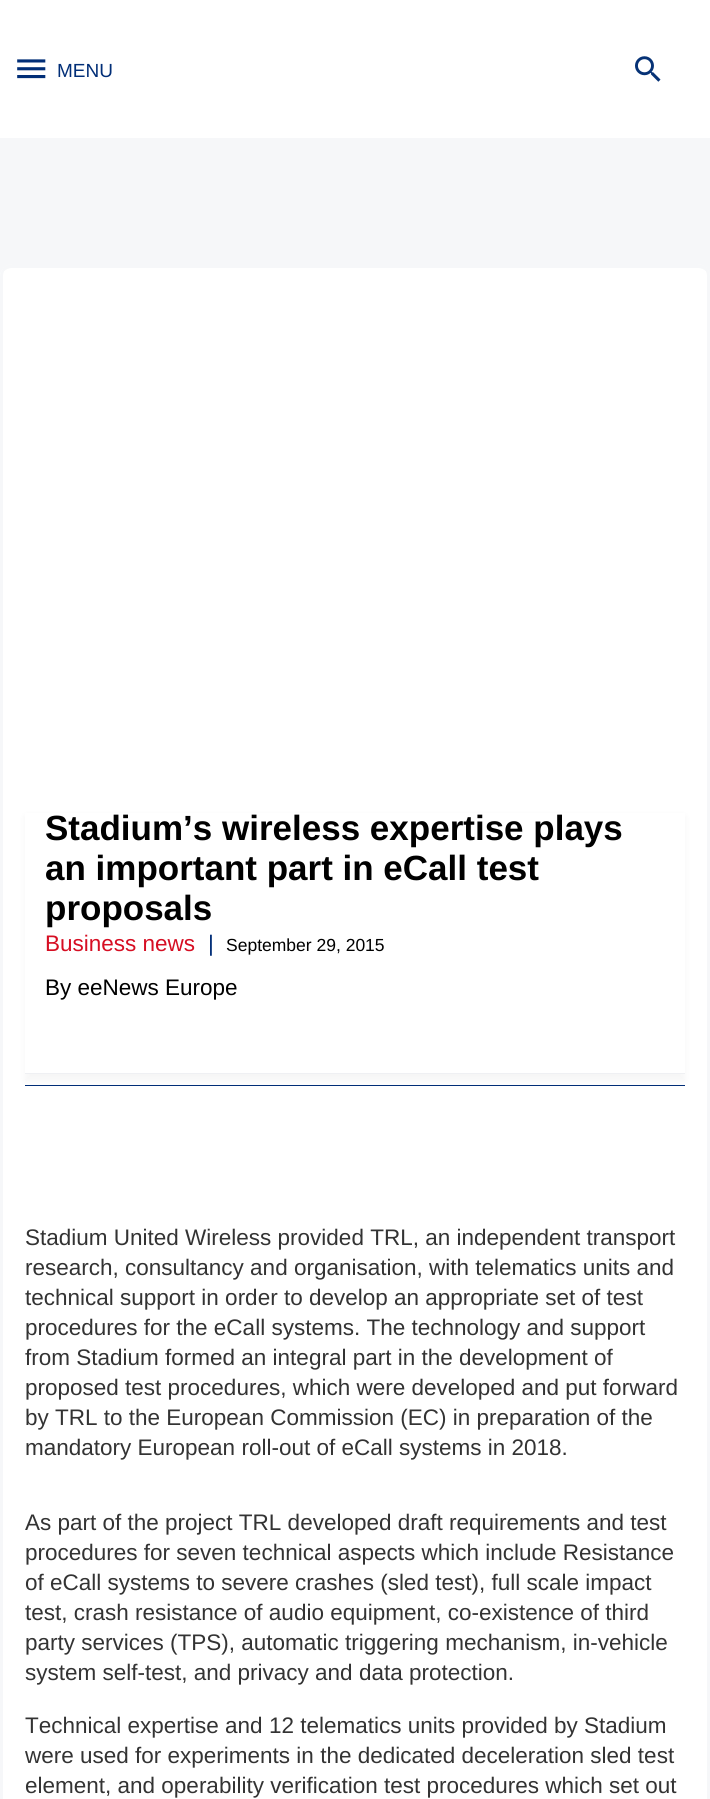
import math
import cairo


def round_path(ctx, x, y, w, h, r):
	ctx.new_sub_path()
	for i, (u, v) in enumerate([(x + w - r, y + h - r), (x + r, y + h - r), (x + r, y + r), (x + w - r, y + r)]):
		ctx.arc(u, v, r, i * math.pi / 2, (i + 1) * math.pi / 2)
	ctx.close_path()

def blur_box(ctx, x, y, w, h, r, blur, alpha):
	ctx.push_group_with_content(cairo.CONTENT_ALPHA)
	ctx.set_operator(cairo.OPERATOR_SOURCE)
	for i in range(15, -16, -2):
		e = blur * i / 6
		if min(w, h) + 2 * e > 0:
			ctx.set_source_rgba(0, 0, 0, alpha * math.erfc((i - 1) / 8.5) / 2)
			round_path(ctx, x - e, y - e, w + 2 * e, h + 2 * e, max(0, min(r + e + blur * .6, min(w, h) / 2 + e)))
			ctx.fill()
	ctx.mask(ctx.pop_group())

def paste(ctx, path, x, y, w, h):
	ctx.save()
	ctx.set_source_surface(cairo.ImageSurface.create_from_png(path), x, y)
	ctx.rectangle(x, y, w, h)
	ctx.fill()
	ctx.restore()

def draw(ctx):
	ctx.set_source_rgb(0.961, 0.965, 0.973)
	ctx.paint()
	ctx.set_source_rgb(1, 1, 1)
	ctx.rectangle(0, 0, 710, 138)
	ctx.fill()
	paste(ctx, 'media/1.png', 17, 59, 29, 20)
	ctx.select_font_face('Liberation Sans')
	ctx.set_font_size(19)
	ctx.set_source_rgb(0.004, 0.18, 0.467)
	ctx.move_to(57, 77)
	ctx.show_text('MENU')
	paste(ctx, 'media/2.png', 635, 56, 26, 26)
	ctx.set_source_rgb(1, 1, 1)
	round_path(ctx, 0, 264, 710, 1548, 13)
	ctx.fill()
	ctx.set_source_rgb(0.961, 0.965, 0.973)
	ctx.new_path()
	ctx.move_to(694, 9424)
	ctx.curve_to(702, 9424, 710, 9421, 710, 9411)
	ctx.line_to(710, 277)
	ctx.curve_to(710, 267, 702, 264, 694, 264)
	ctx.curve_to(701, 264, 707, 269, 707, 276)
	ctx.line_to(707, 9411)
	ctx.curve_to(707, 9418, 701, 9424, 694, 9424)
	ctx.close_path()
	ctx.fill()
	ctx.new_path()
	ctx.move_to(13, 264)
	ctx.curve_to(6, 264, 0, 270, 0, 277)
	ctx.line_to(0, 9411)
	ctx.curve_to(0, 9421, 8, 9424, 16, 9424)
	ctx.curve_to(9, 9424, 3, 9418, 3, 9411)
	ctx.line_to(3, 276)
	ctx.curve_to(3, 269, 9, 264, 16, 264)
	ctx.close_path()
	ctx.fill()
	ctx.new_path()
	ctx.move_to(12, 268)
	ctx.line_to(698, 268)
	ctx.curve_to(704, 268, 710, 273, 710, 280)
	ctx.curve_to(710, 272, 707, 264, 697, 264)
	ctx.line_to(13, 264)
	ctx.curve_to(3, 264, 0, 272, 0, 280)
	ctx.curve_to(0, 273, 6, 268, 12, 268)
	ctx.close_path()
	ctx.fill()
	ctx.set_source_rgb(0, 0, 0)
	blur_box(ctx, 25, 816, 660, 265, 0, 4, 0.04)
	ctx.set_source_rgb(1, 1, 1)
	ctx.rectangle(25, 813, 660, 260)
	ctx.fill()
	ctx.set_source_rgb(0.937, 0.941, 0.953)
	ctx.rectangle(25, 1073, 660, 1)
	ctx.fill()
	ctx.select_font_face('Liberation Sans', cairo.FONT_SLANT_NORMAL, cairo.FONT_WEIGHT_BOLD)
	ctx.set_font_size(35)
	ctx.set_source_rgb(0, 0, 0)
	for x, y, s in [
		(45, 840, 'Stadium’s wireless expertise plays'),
		(45, 880, 'an important part in eCall test'),
		(45, 920, 'proposals'),
	]:
		ctx.move_to(x, y)
		ctx.show_text(s)
	ctx.select_font_face('Liberation Sans')
	ctx.set_font_size(22.5)
	ctx.set_source_rgb(0.839, 0.055, 0.137)
	ctx.move_to(45, 951)
	ctx.show_text('Business news')
	ctx.set_source_rgb(0.004, 0.18, 0.467)
	ctx.move_to(208, 951)
	ctx.show_text('|')
	ctx.set_font_size(17.5)
	ctx.set_source_rgb(0, 0, 0)
	ctx.move_to(226, 951)
	ctx.show_text('September 29, 2015')
	ctx.set_font_size(22.5)
	ctx.move_to(45, 995)
	ctx.show_text('By eeNews Europe')
	ctx.set_source_rgb(0.004, 0.18, 0.467)
	ctx.rectangle(25, 1085, 660, 1)
	ctx.fill()
	ctx.set_source_rgb(0.2, 0.2, 0.2)
	for x, y, s in [
		(25, 1245, 'Stadium United Wireless provided TRL, an independent transport'),
		(25, 1275, 'research, consultancy and organisation, with telematics units and'),
		(25, 1305, 'technical support in order to develop an appropriate set of test'),
		(25, 1335, 'procedures for the eCall systems. The technology and support'),
		(25, 1365, 'from Stadium formed an integral part in the development of'),
		(25, 1395, 'proposed test procedures, which were developed and put forward'),
		(25, 1425, 'by TRL to the European Commission (EC) in preparation of the'),
		(25, 1455, 'mandatory European roll-out of eCall systems in 2018.'),
		(25, 1530, 'As part of the project TRL developed draft requirements and test'),
		(25, 1560, 'procedures for seven technical aspects which include Resistance'),
		(25, 1590, 'of eCall systems to severe crashes (sled test), full scale impact'),
		(25, 1620, 'test, crash resistance of audio equipment, co-existence of third'),
		(25, 1650, 'party services (TPS), automatic triggering mechanism, in-vehicle'),
		(25, 1680, 'system self-test, and privacy and data protection.'),
		(25, 1733, 'Technical expertise and 12 telematics units provided by Stadium'),
		(25, 1763, 'were used for experiments in the dedicated deceleration sled test'),
		(25, 1793, 'element, and operability verification test procedures which set out'),
	]:
		ctx.move_to(x, y)
		ctx.show_text(s)


surface = cairo.ImageSurface(cairo.FORMAT_RGB24, 710, 1799)
ctx = cairo.Context(surface)
options = cairo.FontOptions()
options.set_hint_metrics(cairo.HINT_METRICS_OFF)
options.set_hint_style(cairo.HINT_STYLE_NONE)
ctx.set_font_options(options)
ctx.set_miter_limit(4)
draw(ctx)
surface.write_to_png('image.png')
